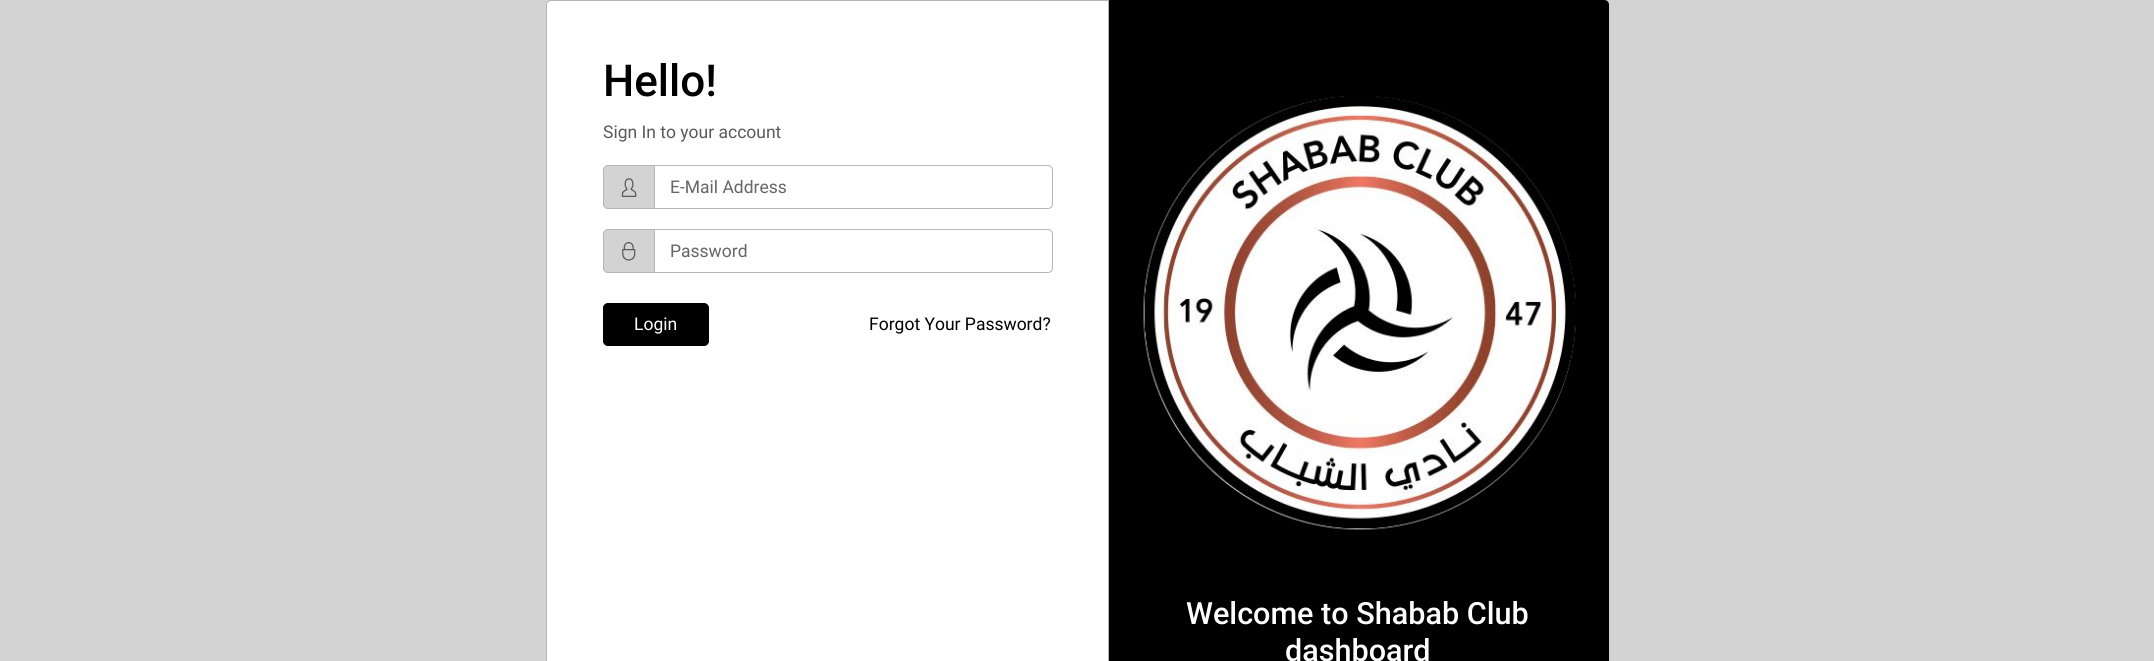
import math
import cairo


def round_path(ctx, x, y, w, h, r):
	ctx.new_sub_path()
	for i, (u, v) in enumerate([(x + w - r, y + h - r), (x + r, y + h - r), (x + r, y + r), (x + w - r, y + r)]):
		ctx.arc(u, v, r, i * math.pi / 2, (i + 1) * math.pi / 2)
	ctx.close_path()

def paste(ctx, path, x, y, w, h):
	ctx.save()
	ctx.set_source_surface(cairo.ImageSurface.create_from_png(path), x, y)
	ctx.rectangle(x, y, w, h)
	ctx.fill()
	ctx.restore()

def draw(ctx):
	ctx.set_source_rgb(0.827, 0.827, 0.827)
	ctx.paint()
	ctx.set_source_rgb(1, 1, 1)
	ctx.new_path()
	ctx.move_to(551, 0.5)
	ctx.line_to(1108.5, 0.5)
	ctx.line_to(1108.5, 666.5)
	ctx.line_to(551, 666.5)
	ctx.curve_to(548.5, 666.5, 546.5, 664.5, 546.5, 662)
	ctx.line_to(546.5, 5)
	ctx.curve_to(546.5, 2.5, 548.5, 0.5, 551, 0.5)
	ctx.close_path()
	ctx.fill_preserve()
	ctx.set_source_rgb(0.714, 0.714, 0.714)
	ctx.set_line_width(1)
	ctx.stroke()
	ctx.select_font_face('Roboto Medium')
	ctx.set_font_size(44)
	ctx.set_source_rgb(0, 0, 0)
	ctx.move_to(603, 96)
	ctx.show_text('Hello!')
	ctx.select_font_face('Roboto')
	ctx.set_font_size(17.5)
	ctx.set_source_rgb(0.353, 0.353, 0.353)
	ctx.move_to(603, 138)
	ctx.show_text('Sign In to your account')
	ctx.set_source_rgb(0.827, 0.827, 0.827)
	ctx.new_path()
	ctx.move_to(608, 165.5)
	ctx.line_to(654.5, 165.5)
	ctx.line_to(654.5, 208.5)
	ctx.line_to(608, 208.5)
	ctx.curve_to(605.5, 208.5, 603.5, 206.5, 603.5, 204)
	ctx.line_to(603.5, 170)
	ctx.curve_to(603.5, 167.5, 605.5, 165.5, 608, 165.5)
	ctx.close_path()
	ctx.fill_preserve()
	ctx.set_source_rgb(0.714, 0.714, 0.714)
	ctx.stroke()
	paste(ctx, 'media/1.png', 621, 178, 16, 19)
	ctx.new_path()
	ctx.move_to(654.5, 165.5)
	ctx.line_to(1048, 165.5)
	ctx.curve_to(1050.5, 165.5, 1052.5, 167.5, 1052.5, 170)
	ctx.line_to(1052.5, 204)
	ctx.curve_to(1052.5, 206.5, 1050.5, 208.5, 1048, 208.5)
	ctx.line_to(654.5, 208.5)
	ctx.close_path()
	ctx.stroke()
	ctx.set_source_rgb(0.396, 0.396, 0.396)
	ctx.move_to(670, 193)
	ctx.show_text('E-Mail Address')
	ctx.set_source_rgb(0.827, 0.827, 0.827)
	ctx.new_path()
	ctx.move_to(608, 229.5)
	ctx.line_to(654.5, 229.5)
	ctx.line_to(654.5, 272.5)
	ctx.line_to(608, 272.5)
	ctx.curve_to(605.5, 272.5, 603.5, 270.5, 603.5, 268)
	ctx.line_to(603.5, 234)
	ctx.curve_to(603.5, 231.5, 605.5, 229.5, 608, 229.5)
	ctx.close_path()
	ctx.fill_preserve()
	ctx.set_source_rgb(0.714, 0.714, 0.714)
	ctx.stroke()
	paste(ctx, 'media/2.png', 622, 242, 14, 19)
	ctx.new_path()
	ctx.move_to(654.5, 229.5)
	ctx.line_to(1048, 229.5)
	ctx.curve_to(1050.5, 229.5, 1052.5, 231.5, 1052.5, 234)
	ctx.line_to(1052.5, 268)
	ctx.curve_to(1052.5, 270.5, 1050.5, 272.5, 1048, 272.5)
	ctx.line_to(654.5, 272.5)
	ctx.close_path()
	ctx.stroke()
	ctx.set_source_rgb(0.396, 0.396, 0.396)
	ctx.move_to(670, 257)
	ctx.show_text('Password')
	ctx.set_source_rgb(0, 0, 0)
	round_path(ctx, 603.5, 303.5, 105, 42, 4.5)
	ctx.fill_preserve()
	ctx.stroke()
	ctx.set_source_rgb(1, 1, 1)
	ctx.move_to(634, 330)
	ctx.show_text('Login')
	ctx.set_source_rgb(0, 0, 0)
	ctx.move_to(869, 330)
	ctx.show_text('Forgot Your Password?')
	ctx.new_path()
	ctx.move_to(1109, 0)
	ctx.line_to(1604, 0)
	ctx.curve_to(1607, 0, 1609, 2, 1609, 5)
	ctx.line_to(1609, 661)
	ctx.curve_to(1609, 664, 1607, 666, 1604, 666)
	ctx.line_to(1109, 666)
	ctx.close_path()
	ctx.fill()
	ctx.set_source_rgba(0, 0, 0, 0.12)
	ctx.set_fill_rule(cairo.FILL_RULE_EVEN_ODD)
	ctx.new_path()
	ctx.move_to(1109, 0)
	ctx.line_to(1604, 0)
	ctx.curve_to(1607, 0, 1609, 2, 1609, 5)
	ctx.line_to(1609, 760)
	ctx.curve_to(1609, 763, 1607, 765, 1604, 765)
	ctx.line_to(1109, 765)
	ctx.close_path()
	ctx.move_to(1109, 1)
	ctx.line_to(1604, 1)
	ctx.curve_to(1606, 1, 1608, 3, 1608, 5)
	ctx.line_to(1608, 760)
	ctx.curve_to(1608, 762, 1606, 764, 1604, 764)
	ctx.line_to(1109, 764)
	ctx.close_path()
	ctx.fill()
	paste(ctx, 'media/3.png', 1143, 96, 433, 434)
	ctx.select_font_face('Roboto Medium')
	ctx.set_font_size(30.6)
	ctx.set_source_rgb(1, 1, 1)
	ctx.move_to(1186, 624)
	ctx.show_text('Welcome to Shabab Club')
	ctx.move_to(1285, 661)
	ctx.show_text('dashboard')


surface = cairo.ImageSurface(cairo.FORMAT_RGB24, 2154, 661)
ctx = cairo.Context(surface)
options = cairo.FontOptions()
options.set_hint_metrics(cairo.HINT_METRICS_OFF)
options.set_hint_style(cairo.HINT_STYLE_NONE)
ctx.set_font_options(options)
ctx.set_miter_limit(4)
draw(ctx)
surface.write_to_png('image.png')
